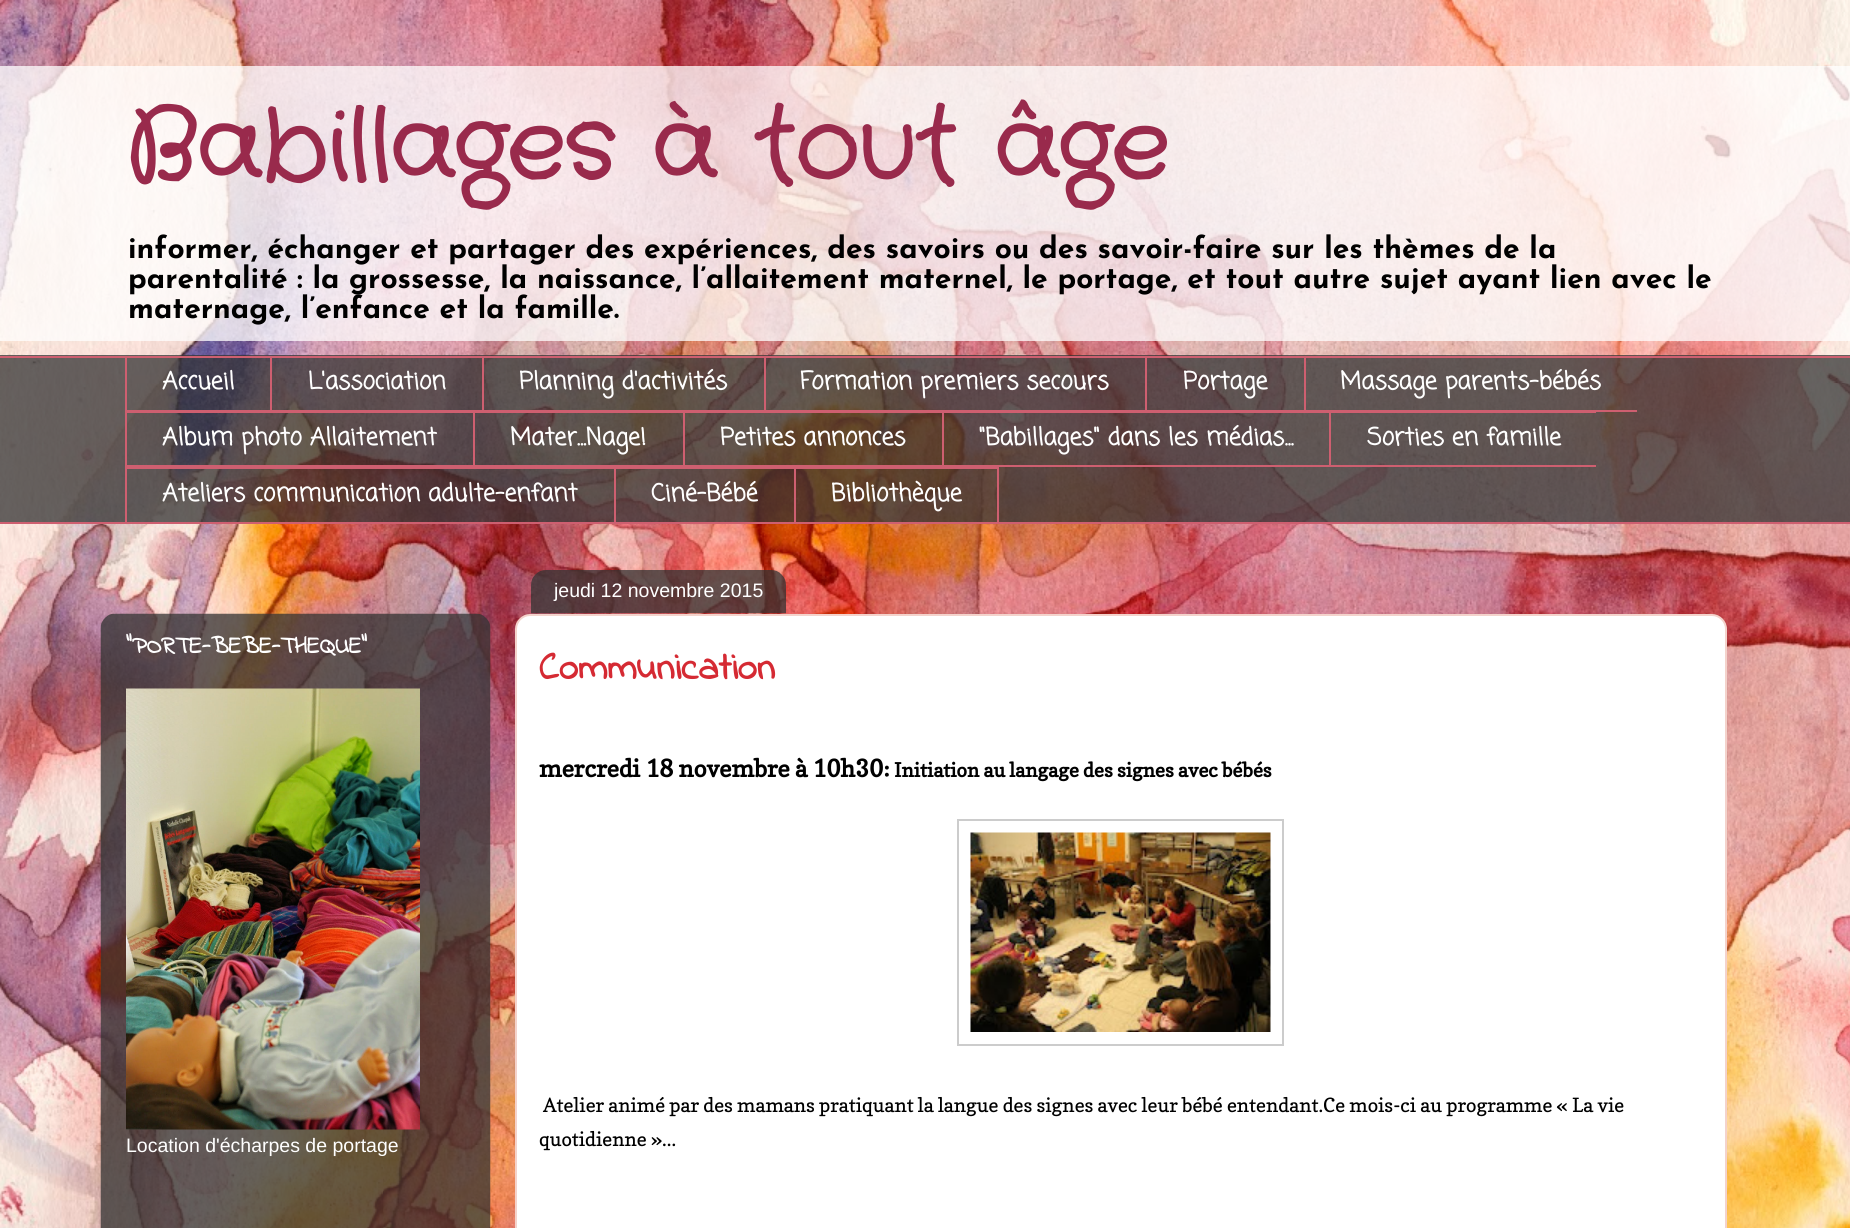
import math
import cairo


def paste(ctx, path, x, y, w, h):
	ctx.save()
	ctx.set_source_surface(cairo.ImageSurface.create_from_png(path), x, y)
	ctx.rectangle(x, y, w, h)
	ctx.fill()
	ctx.restore()

def draw(ctx):
	ctx.set_source_rgb(1, 1, 1)
	ctx.paint()
	paste(ctx, 'media/1.png', 0, 0, 1850, 1228)
	ctx.set_source_rgba(1, 1, 1, 0.75)
	ctx.rectangle(0, 66, 1850, 275)
	ctx.fill()
	ctx.select_font_face('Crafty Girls', cairo.FONT_SLANT_NORMAL, cairo.FONT_WEIGHT_BOLD)
	ctx.set_font_size(97.5)
	ctx.set_source_rgb(0.6, 0.165, 0.298)
	ctx.move_to(125, 176)
	ctx.show_text('Babillages à tout âge')
	ctx.select_font_face('Josefin Sans Thin')
	ctx.set_font_size(30)
	ctx.set_source_rgb(0, 0, 0)
	for x, y, s in [
		(128, 258, 'informer, échanger et partager des expériences, des savoirs ou des savoir-faire sur les thèmes de la'),
		(128, 288, 'parentalité : la grossesse, la naissance, l’allaitement maternel, le portage, et tout autre sujet ayant lien avec le'),
		(128, 318, 'maternage, l’enfance et la famille.'),
	]:
		ctx.move_to(x, y)
		ctx.show_text(s)
	ctx.set_source_rgba(0.2, 0.2, 0.2, 0.75)
	ctx.rectangle(0, 355, 1850, 167)
	ctx.fill()
	ctx.set_source_rgb(0.808, 0.373, 0.439)
	ctx.rectangle(0, 356, 1850, 2)
	ctx.rectangle(125, 410, 1179, 1)
	ctx.rectangle(125, 356, 2, 55)
	ctx.fill()
	ctx.select_font_face('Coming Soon', cairo.FONT_SLANT_NORMAL, cairo.FONT_WEIGHT_BOLD)
	ctx.set_font_size(24)
	ctx.set_source_rgb(1, 1, 1)
	ctx.move_to(162, 389)
	ctx.show_text('Accueil')
	ctx.set_source_rgb(0.808, 0.373, 0.439)
	ctx.rectangle(270, 356, 2, 55)
	ctx.fill()
	ctx.set_source_rgb(1, 1, 1)
	ctx.move_to(308, 389)
	ctx.show_text('L\'association')
	ctx.set_source_rgb(0.808, 0.373, 0.439)
	ctx.rectangle(482, 356, 2, 55)
	ctx.fill()
	ctx.set_source_rgb(1, 1, 1)
	ctx.move_to(519, 389)
	ctx.show_text('Planning d\'activités')
	ctx.set_source_rgb(0.808, 0.373, 0.439)
	ctx.rectangle(764, 356, 2, 55)
	ctx.fill()
	ctx.set_source_rgb(1, 1, 1)
	ctx.move_to(800, 389)
	ctx.show_text('Formation premiers secours')
	ctx.set_source_rgb(0.808, 0.373, 0.439)
	ctx.rectangle(1145, 356, 2, 55)
	ctx.fill()
	ctx.set_source_rgb(1, 1, 1)
	ctx.move_to(1183, 389)
	ctx.show_text('Portage')
	ctx.set_source_rgb(0.808, 0.373, 0.439)
	ctx.rectangle(1304, 410, 333, 2)
	ctx.fill()
	ctx.rectangle(1304, 356, 2, 55)
	ctx.fill()
	ctx.set_source_rgb(1, 1, 1)
	ctx.move_to(1340, 389)
	ctx.show_text('Massage parents-bébés')
	ctx.set_source_rgb(0.808, 0.373, 0.439)
	ctx.rectangle(125, 411, 1204, 2)
	ctx.rectangle(125, 465, 1471, 2)
	ctx.rectangle(125, 411, 2, 56)
	ctx.fill()
	ctx.set_source_rgb(1, 1, 1)
	ctx.move_to(162, 445)
	ctx.show_text('Album photo Allaitement')
	ctx.set_source_rgb(0.808, 0.373, 0.439)
	ctx.rectangle(473, 411, 2, 56)
	ctx.fill()
	ctx.set_source_rgb(1, 1, 1)
	ctx.move_to(510, 445)
	ctx.show_text('Mater...Nage!')
	ctx.set_source_rgb(0.808, 0.373, 0.439)
	ctx.rectangle(683, 411, 2, 56)
	ctx.fill()
	ctx.set_source_rgb(1, 1, 1)
	ctx.move_to(720, 445)
	ctx.show_text('Petites annonces')
	ctx.set_source_rgb(0.808, 0.373, 0.439)
	ctx.rectangle(942, 411, 2, 56)
	ctx.fill()
	ctx.set_source_rgb(1, 1, 1)
	ctx.move_to(979, 445)
	ctx.show_text('"Babillages" dans les médias...')
	ctx.set_source_rgb(0.808, 0.373, 0.439)
	ctx.rectangle(1329, 412, 267, 1)
	ctx.fill()
	ctx.rectangle(1329, 411, 2, 56)
	ctx.fill()
	ctx.set_source_rgb(1, 1, 1)
	ctx.move_to(1367, 445)
	ctx.show_text('Sorties en famille')
	ctx.set_source_rgb(0.808, 0.373, 0.439)
	ctx.rectangle(125, 467, 669, 2)
	ctx.fill()
	ctx.rectangle(125, 467, 2, 57)
	ctx.fill()
	ctx.set_source_rgb(1, 1, 1)
	ctx.move_to(162, 501)
	ctx.show_text('Ateliers communication adulte-enfant')
	ctx.set_source_rgb(0.808, 0.373, 0.439)
	ctx.rectangle(614, 467, 2, 57)
	ctx.fill()
	ctx.set_source_rgb(1, 1, 1)
	ctx.move_to(651, 501)
	ctx.show_text('Ciné-Bébé')
	ctx.rectangle(795, 468, 203, 55)
	ctx.set_source_rgb(0.808, 0.373, 0.439)
	ctx.stroke()
	ctx.set_source_rgb(1, 1, 1)
	ctx.move_to(831, 501)
	ctx.show_text('Bibliothèque')
	ctx.set_source_rgb(0.808, 0.373, 0.439)
	ctx.rectangle(0, 522, 1850, 2)
	ctx.fill()
	paste(ctx, 'media/2.png', 100, 613, 391, 615)
	ctx.select_font_face('Indie Flower', cairo.FONT_SLANT_NORMAL, cairo.FONT_WEIGHT_BOLD)
	ctx.set_source_rgb(1, 1, 1)
	ctx.move_to(126, 653)
	ctx.show_text('"PORTE-BEBE-THEQUE"')
	paste(ctx, 'media/3.png', 126, 688, 294, 442)
	ctx.select_font_face('Liberation Sans')
	ctx.set_font_size(19.5)
	ctx.move_to(126, 1152)
	ctx.show_text('Location d\'écharpes de portage')
	ctx.new_path()
	ctx.move_to(530, 615)
	ctx.line_to(1712, 615)
	ctx.curve_to(1719.5, 615, 1726, 621.5, 1726, 629)
	ctx.line_to(1726, 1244)
	ctx.line_to(516, 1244)
	ctx.line_to(516, 629)
	ctx.curve_to(516, 621.5, 522.5, 615, 530, 615)
	ctx.close_path()
	ctx.fill_preserve()
	ctx.set_source_rgb(0.957, 0.827, 0.8)
	ctx.stroke()
	paste(ctx, 'media/4.png', 531, 570, 255, 44)
	ctx.set_source_rgb(1, 1, 1)
	ctx.move_to(554, 597)
	ctx.show_text('jeudi 12 novembre 2015')
	ctx.select_font_face('Indie Flower', cairo.FONT_SLANT_NORMAL, cairo.FONT_WEIGHT_BOLD)
	ctx.set_font_size(39)
	ctx.set_source_rgb(0.835, 0.165, 0.2)
	ctx.move_to(539, 679)
	ctx.show_text('Communication')
	ctx.select_font_face('Copse', cairo.FONT_SLANT_NORMAL, cairo.FONT_WEIGHT_BOLD)
	ctx.set_font_size(24)
	ctx.set_source_rgb(0, 0, 0)
	ctx.move_to(539, 777)
	ctx.show_text('mercredi 18 novembre à 10h30:')
	ctx.set_font_size(19.5)
	ctx.move_to(894, 777)
	ctx.show_text('Initiation au langage des signes avec bébés')
	ctx.rectangle(958, 820, 325, 225)
	ctx.set_source_rgb(0.8, 0.8, 0.8)
	ctx.stroke()
	paste(ctx, 'media/5.png', 970, 832, 301, 200)
	ctx.select_font_face('Copse')
	ctx.set_source_rgb(0, 0, 0)
	ctx.move_to(543, 1112)
	ctx.show_text('Atelier animé par des mamans pratiquant la langue des signes avec leur bébé entendant.Ce mois-ci au programme « La vie')
	ctx.move_to(539, 1146)
	ctx.show_text('quotidienne »...')


surface = cairo.ImageSurface(cairo.FORMAT_RGB24, 1850, 1228)
ctx = cairo.Context(surface)
options = cairo.FontOptions()
options.set_hint_metrics(cairo.HINT_METRICS_OFF)
options.set_hint_style(cairo.HINT_STYLE_NONE)
ctx.set_font_options(options)
ctx.set_miter_limit(4)
draw(ctx)
surface.write_to_png('image.png')
